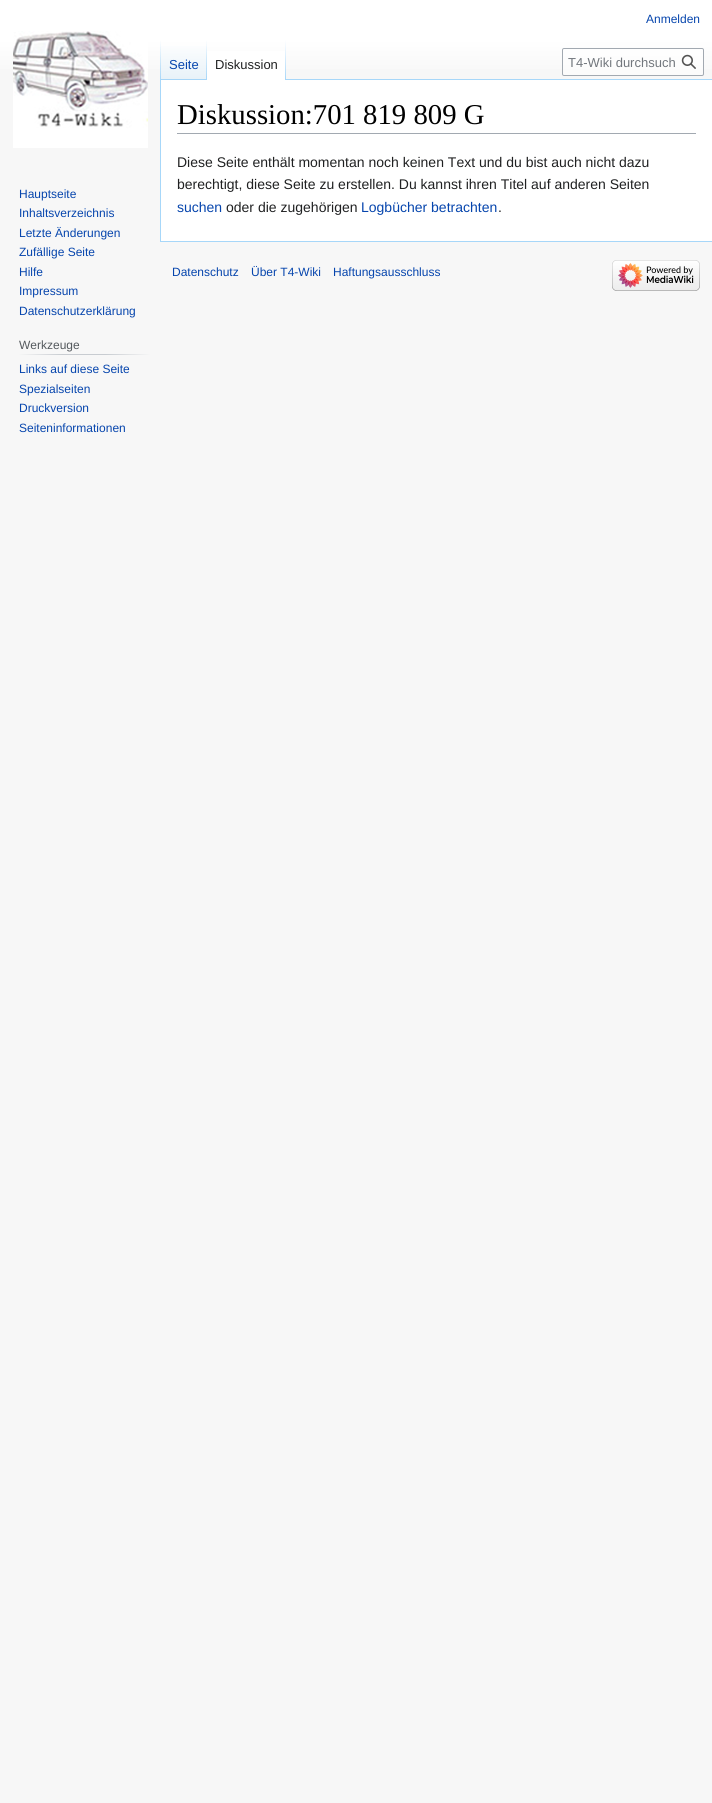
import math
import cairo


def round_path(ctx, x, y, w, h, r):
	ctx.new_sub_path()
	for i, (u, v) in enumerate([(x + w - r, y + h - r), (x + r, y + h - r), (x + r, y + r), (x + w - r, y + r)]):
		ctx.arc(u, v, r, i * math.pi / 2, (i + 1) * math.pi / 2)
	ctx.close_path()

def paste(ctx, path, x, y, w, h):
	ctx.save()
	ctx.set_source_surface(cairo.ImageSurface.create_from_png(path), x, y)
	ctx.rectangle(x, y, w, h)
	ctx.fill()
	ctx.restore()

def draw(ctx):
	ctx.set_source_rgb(0.965, 0.965, 0.965)
	ctx.paint()
	gradient = cairo.LinearGradient(356, 0, 356, 80)
	gradient.add_color_stop_rgba(0.5, 1, 1, 1, 1)
	gradient.add_color_stop_rgba(1, 0.965, 0.965, 0.965, 1)
	ctx.set_source(gradient)
	ctx.rectangle(0, 0, 712, 69)
	ctx.fill()
	ctx.select_font_face('Liberation Sans')
	ctx.set_font_size(12)
	ctx.set_source_rgb(0.024, 0.271, 0.678)
	ctx.move_to(646, 23)
	ctx.show_text('Anmelden')
	ctx.set_source_rgb(0.655, 0.843, 0.976)
	ctx.rectangle(160, 241, 552, 1)
	ctx.fill()
	ctx.rectangle(160, 79, 1, 163)
	ctx.fill()
	gradient = cairo.LinearGradient(161, 40, 161, 80)
	gradient.add_color_stop_rgba(0, 0.655, 0.843, 0.976, 0)
	gradient.add_color_stop_rgba(1, 0.655, 0.843, 0.976, 1)
	ctx.set_source(gradient)
	ctx.rectangle(160, 40, 1, 40)
	ctx.fill()
	gradient = cairo.LinearGradient(184, 80, 184, 40)
	gradient.add_color_stop_rgba(0, 0.467, 0.757, 0.965, 1)
	gradient.add_color_stop_rgba(0.03, 0.91, 0.949, 0.973, 1)
	gradient.add_color_stop_rgba(1, 1, 1, 1, 1)
	ctx.set_source(gradient)
	ctx.rectangle(161, 46, 46, 34)
	ctx.fill()
	gradient = cairo.LinearGradient(207, 40, 207, 80)
	gradient.add_color_stop_rgba(0, 0.655, 0.843, 0.976, 0)
	gradient.add_color_stop_rgba(1, 0.655, 0.843, 0.976, 1)
	ctx.set_source(gradient)
	ctx.rectangle(206, 40, 1, 40)
	ctx.fill()
	ctx.set_font_size(13)
	ctx.set_source_rgb(0.024, 0.271, 0.678)
	ctx.move_to(169, 69)
	ctx.show_text('Seite')
	ctx.set_source_rgb(1, 1, 1)
	ctx.rectangle(207, 51, 78, 29)
	ctx.fill()
	gradient = cairo.LinearGradient(286, 40, 286, 80)
	gradient.add_color_stop_rgba(0, 1, 1, 1, 1)
	gradient.add_color_stop_rgba(1, 0.655, 0.843, 0.976, 1)
	ctx.set_source(gradient)
	ctx.rectangle(285, 40, 1, 40)
	ctx.fill()
	ctx.set_source_rgb(0.125, 0.129, 0.133)
	ctx.move_to(215, 69)
	ctx.show_text('Diskussion')
	ctx.set_source_rgba(1, 1, 1, 0.5)
	round_path(ctx, 562.5, 48.5, 141, 27, 1.5)
	ctx.fill_preserve()
	ctx.set_source_rgb(0.635, 0.663, 0.694)
	ctx.set_line_width(1)
	ctx.stroke()
	ctx.set_source_rgb(0.447, 0.467, 0.49)
	ctx.move_to(568, 67)
	ctx.show_text('T4-Wiki durchsuch')
	paste(ctx, 'media/1.png', 681, 54, 15, 15)
	paste(ctx, 'media/2.png', 13, 31, 135, 117)
	ctx.set_font_size(12)
	ctx.set_source_rgb(0.024, 0.271, 0.678)
	for x, y, s in [
		(19, 198, 'Hauptseite'),
		(19, 217, 'Inhaltsverzeichnis'),
		(19, 237, 'Letzte Änderungen'),
		(19, 256, 'Zufällige Seite'),
		(19, 276, 'Hilfe'),
		(19, 295, 'Impressum'),
		(19, 315, 'Datenschutzerklärung'),
	]:
		ctx.move_to(x, y)
		ctx.show_text(s)
	gradient = cairo.LinearGradient(19, 355, 150, 355)
	gradient.add_color_stop_rgba(0, 0.965, 0.965, 0.965, 1)
	gradient.add_color_stop_rgba(0.33, 0.784, 0.8, 0.82, 1)
	gradient.add_color_stop_rgba(0.66, 0.784, 0.8, 0.82, 1)
	gradient.add_color_stop_rgba(1, 0.965, 0.965, 0.965, 1)
	ctx.set_source(gradient)
	ctx.rectangle(19, 354, 131, 1)
	ctx.fill()
	ctx.set_source_rgb(0.329, 0.349, 0.365)
	ctx.move_to(19, 349)
	ctx.show_text('Werkzeuge')
	ctx.set_source_rgb(0.024, 0.271, 0.678)
	for x, y, s in [
		(19, 373, 'Links auf diese Seite'),
		(19, 393, 'Spezialseiten'),
		(19, 412, 'Druckversion'),
		(19, 432, 'Seiteninformationen'),
	]:
		ctx.move_to(x, y)
		ctx.show_text(s)
	ctx.set_source_rgb(1, 1, 1)
	ctx.rectangle(161, 80, 551, 161)
	ctx.fill()
	ctx.set_source_rgb(0.655, 0.843, 0.976)
	ctx.rectangle(286, 79, 426, 1)
	ctx.fill()
	ctx.set_source_rgb(0.635, 0.663, 0.694)
	ctx.rectangle(177, 133, 519, 1)
	ctx.fill()
	ctx.select_font_face('Liberation Serif')
	ctx.set_font_size(28.75)
	ctx.set_source_rgb(0, 0, 0)
	ctx.move_to(177, 124)
	ctx.show_text('Diskussion:701 819 809 G')
	ctx.select_font_face('Liberation Sans')
	ctx.set_font_size(14)
	ctx.set_source_rgb(0.125, 0.129, 0.133)
	ctx.move_to(177, 167)
	ctx.show_text('Diese Seite enthält momentan noch keinen Text und du bist auch nicht dazu')
	ctx.move_to(177, 189)
	ctx.show_text('berechtigt, diese Seite zu erstellen. Du kannst ihren Titel auf anderen Seiten')
	ctx.set_source_rgb(0.024, 0.271, 0.678)
	ctx.move_to(177, 212)
	ctx.show_text('suchen')
	ctx.set_source_rgb(0.125, 0.129, 0.133)
	ctx.move_to(226, 212)
	ctx.show_text('oder die zugehörigen')
	ctx.set_source_rgb(0.024, 0.271, 0.678)
	ctx.move_to(361, 212)
	ctx.show_text('Logbücher betrachten')
	ctx.set_source_rgb(0.125, 0.129, 0.133)
	ctx.move_to(498, 212)
	ctx.show_text('.')
	ctx.set_font_size(12)
	ctx.set_source_rgb(0.024, 0.271, 0.678)
	for x, y, s in [
		(172, 276, 'Datenschutz'),
		(251, 276, 'Über T4-Wiki'),
		(333, 276, 'Haftungsausschluss'),
	]:
		ctx.move_to(x, y)
		ctx.show_text(s)
	paste(ctx, 'media/3.png', 612, 260, 88, 31)


surface = cairo.ImageSurface(cairo.FORMAT_RGB24, 712, 1803)
ctx = cairo.Context(surface)
options = cairo.FontOptions()
options.set_hint_metrics(cairo.HINT_METRICS_OFF)
options.set_hint_style(cairo.HINT_STYLE_NONE)
ctx.set_font_options(options)
ctx.set_miter_limit(4)
draw(ctx)
surface.write_to_png('image.png')
